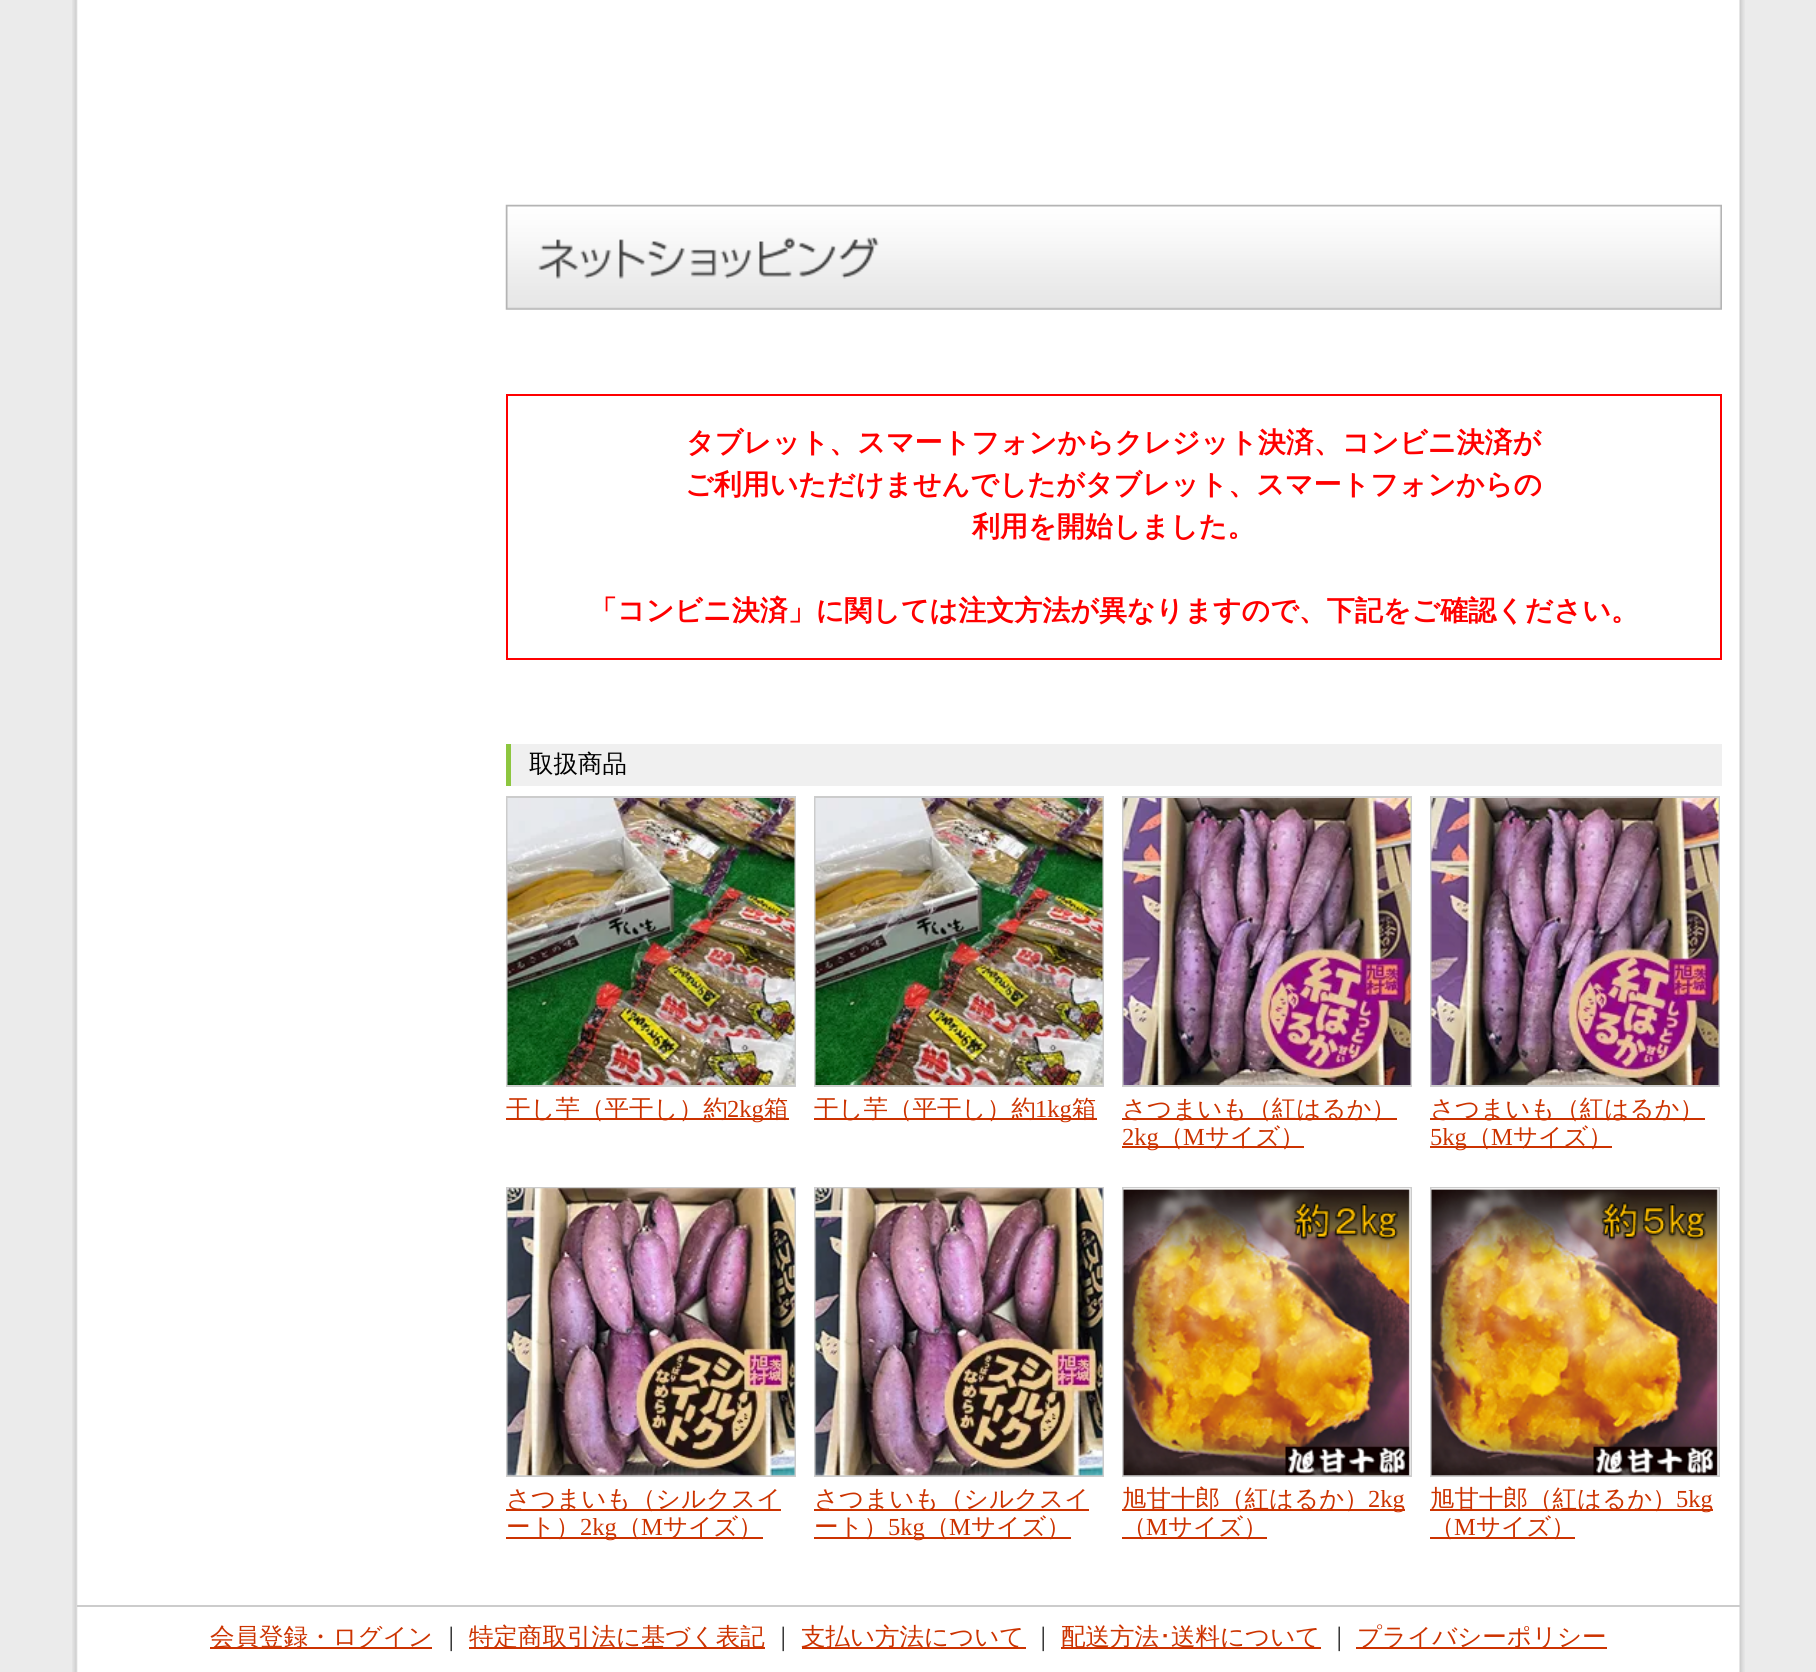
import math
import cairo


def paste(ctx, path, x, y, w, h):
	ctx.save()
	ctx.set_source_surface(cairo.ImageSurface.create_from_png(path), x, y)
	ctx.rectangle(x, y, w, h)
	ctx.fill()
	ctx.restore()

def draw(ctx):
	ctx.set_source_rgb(0.918, 0.918, 0.918)
	ctx.paint()
	paste(ctx, 'media/1.png', 72, 0, 1673, 1672)
	paste(ctx, 'media/2.png', 505, 204, 1217, 106)
	ctx.rectangle(507, 395, 1214, 264)
	ctx.set_source_rgb(1, 0, 0)
	ctx.stroke()
	ctx.select_font_face('WenQuanYi Zen Hei', cairo.FONT_SLANT_NORMAL, cairo.FONT_WEIGHT_BOLD)
	ctx.set_font_size(28)
	for x, y, s in [
		(686, 452, 'タブレット、スマートフォンからクレジット決済、コンビニ決済が'),
		(685, 494, 'ご利用いただけませんでしたがタブレット、スマートフォンからの'),
		(972, 536, '利用を開始しました。'),
		(589, 620, '「コンビニ決済」に関しては注文方法が異なりますので、下記をご確認ください。'),
	]:
		ctx.move_to(x, y)
		ctx.show_text(s)
	ctx.set_source_rgb(0.941, 0.941, 0.941)
	ctx.rectangle(511, 744, 1211, 42)
	ctx.fill()
	ctx.set_source_rgb(0.553, 0.776, 0.247)
	ctx.rectangle(506, 744, 5, 42)
	ctx.fill()
	ctx.select_font_face('WenQuanYi Zen Hei Medium')
	ctx.set_font_size(24.5)
	ctx.set_source_rgb(0, 0, 0)
	ctx.move_to(529, 772)
	ctx.show_text('取扱商品')
	ctx.rectangle(507, 797, 288, 289)
	ctx.set_source_rgb(0.8, 0.8, 0.8)
	ctx.stroke()
	paste(ctx, 'media/3.png', 507, 798, 288, 287)
	ctx.set_source_rgb(0.8, 0.2, 0)
	ctx.rectangle(506, 1118, 283, 2)
	ctx.fill()
	ctx.move_to(506, 1117)
	ctx.show_text('干し芋（平干し）約')
	ctx.select_font_face('Liberation Serif')
	ctx.move_to(727, 1117)
	ctx.show_text('2kg')
	ctx.select_font_face('WenQuanYi Zen Hei Medium')
	ctx.move_to(764, 1117)
	ctx.show_text('箱')
	ctx.rectangle(815, 797, 288, 289)
	ctx.set_source_rgb(0.8, 0.8, 0.8)
	ctx.stroke()
	paste(ctx, 'media/3.png', 815, 798, 288, 287)
	ctx.set_source_rgb(0.8, 0.2, 0)
	ctx.rectangle(814, 1118, 283, 2)
	ctx.fill()
	ctx.move_to(814, 1117)
	ctx.show_text('干し芋（平干し）約')
	ctx.select_font_face('Liberation Serif')
	ctx.move_to(1035, 1117)
	ctx.show_text('1kg')
	ctx.select_font_face('WenQuanYi Zen Hei Medium')
	ctx.move_to(1072, 1117)
	ctx.show_text('箱')
	ctx.rectangle(1123, 797, 288, 289)
	ctx.set_source_rgb(0.8, 0.8, 0.8)
	ctx.stroke()
	paste(ctx, 'media/4.png', 1123, 798, 288, 287)
	ctx.set_source_rgb(0.8, 0.2, 0)
	ctx.rectangle(1122, 1118, 275, 2)
	ctx.fill()
	ctx.move_to(1122, 1117)
	ctx.show_text('さつまいも（紅はるか）')
	ctx.rectangle(1122, 1146, 182, 2)
	ctx.fill()
	ctx.select_font_face('Liberation Serif')
	ctx.move_to(1122, 1145)
	ctx.show_text('2kg')
	ctx.select_font_face('WenQuanYi Zen Hei Medium')
	ctx.move_to(1159, 1145)
	ctx.show_text('（')
	ctx.select_font_face('Liberation Serif')
	ctx.move_to(1183, 1145)
	ctx.show_text('M')
	ctx.select_font_face('WenQuanYi Zen Hei Medium')
	ctx.move_to(1205, 1145)
	ctx.show_text('サイズ）')
	ctx.rectangle(1431, 797, 288, 289)
	ctx.set_source_rgb(0.8, 0.8, 0.8)
	ctx.stroke()
	paste(ctx, 'media/4.png', 1431, 798, 288, 287)
	ctx.set_source_rgb(0.8, 0.2, 0)
	ctx.rectangle(1430, 1118, 275, 2)
	ctx.fill()
	ctx.move_to(1430, 1117)
	ctx.show_text('さつまいも（紅はるか）')
	ctx.rectangle(1430, 1146, 182, 2)
	ctx.fill()
	ctx.select_font_face('Liberation Serif')
	ctx.move_to(1430, 1145)
	ctx.show_text('5kg')
	ctx.select_font_face('WenQuanYi Zen Hei Medium')
	ctx.move_to(1467, 1145)
	ctx.show_text('（')
	ctx.select_font_face('Liberation Serif')
	ctx.move_to(1491, 1145)
	ctx.show_text('M')
	ctx.select_font_face('WenQuanYi Zen Hei Medium')
	ctx.move_to(1513, 1145)
	ctx.show_text('サイズ）')
	ctx.rectangle(507, 1188, 288, 288)
	ctx.set_source_rgb(0.8, 0.8, 0.8)
	ctx.stroke()
	paste(ctx, 'media/5.png', 507, 1188, 288, 288)
	ctx.set_source_rgb(0.8, 0.2, 0)
	ctx.rectangle(506, 1509, 275, 2)
	ctx.fill()
	ctx.move_to(506, 1507)
	ctx.show_text('さつまいも（シルクスイ')
	ctx.rectangle(506, 1537, 257, 2)
	ctx.fill()
	ctx.move_to(506, 1535)
	ctx.show_text('ート）')
	ctx.select_font_face('Liberation Serif')
	ctx.move_to(580, 1535)
	ctx.show_text('2kg')
	ctx.select_font_face('WenQuanYi Zen Hei Medium')
	ctx.move_to(617, 1535)
	ctx.show_text('（')
	ctx.select_font_face('Liberation Serif')
	ctx.move_to(641, 1535)
	ctx.show_text('M')
	ctx.select_font_face('WenQuanYi Zen Hei Medium')
	ctx.move_to(663, 1535)
	ctx.show_text('サイズ）')
	ctx.rectangle(815, 1188, 288, 288)
	ctx.set_source_rgb(0.8, 0.8, 0.8)
	ctx.stroke()
	paste(ctx, 'media/5.png', 815, 1188, 288, 288)
	ctx.set_source_rgb(0.8, 0.2, 0)
	ctx.rectangle(814, 1509, 275, 2)
	ctx.fill()
	ctx.move_to(814, 1507)
	ctx.show_text('さつまいも（シルクスイ')
	ctx.rectangle(814, 1537, 257, 2)
	ctx.fill()
	ctx.move_to(814, 1535)
	ctx.show_text('ート）')
	ctx.select_font_face('Liberation Serif')
	ctx.move_to(888, 1535)
	ctx.show_text('5kg')
	ctx.select_font_face('WenQuanYi Zen Hei Medium')
	ctx.move_to(925, 1535)
	ctx.show_text('（')
	ctx.select_font_face('Liberation Serif')
	ctx.move_to(949, 1535)
	ctx.show_text('M')
	ctx.select_font_face('WenQuanYi Zen Hei Medium')
	ctx.move_to(971, 1535)
	ctx.show_text('サイズ）')
	ctx.rectangle(1123, 1188, 288, 288)
	ctx.set_source_rgb(0.8, 0.8, 0.8)
	ctx.stroke()
	paste(ctx, 'media/6.png', 1123, 1188, 288, 288)
	ctx.set_source_rgb(0.8, 0.2, 0)
	ctx.rectangle(1122, 1509, 283, 2)
	ctx.fill()
	ctx.move_to(1122, 1507)
	ctx.show_text('旭甘十郎（紅はるか）')
	ctx.select_font_face('Liberation Serif')
	ctx.move_to(1368, 1507)
	ctx.show_text('2kg')
	ctx.rectangle(1122, 1537, 145, 2)
	ctx.fill()
	ctx.select_font_face('WenQuanYi Zen Hei Medium')
	ctx.move_to(1122, 1535)
	ctx.show_text('（')
	ctx.select_font_face('Liberation Serif')
	ctx.move_to(1146, 1535)
	ctx.show_text('M')
	ctx.select_font_face('WenQuanYi Zen Hei Medium')
	ctx.move_to(1168, 1535)
	ctx.show_text('サイズ）')
	ctx.rectangle(1431, 1188, 288, 288)
	ctx.set_source_rgb(0.8, 0.8, 0.8)
	ctx.stroke()
	paste(ctx, 'media/7.png', 1431, 1188, 288, 288)
	ctx.set_source_rgb(0.8, 0.2, 0)
	ctx.rectangle(1430, 1509, 283, 2)
	ctx.fill()
	ctx.move_to(1430, 1507)
	ctx.show_text('旭甘十郎（紅はるか）')
	ctx.select_font_face('Liberation Serif')
	ctx.move_to(1676, 1507)
	ctx.show_text('5kg')
	ctx.rectangle(1430, 1537, 145, 2)
	ctx.fill()
	ctx.select_font_face('WenQuanYi Zen Hei Medium')
	ctx.move_to(1430, 1535)
	ctx.show_text('（')
	ctx.select_font_face('Liberation Serif')
	ctx.move_to(1454, 1535)
	ctx.show_text('M')
	ctx.select_font_face('WenQuanYi Zen Hei Medium')
	ctx.move_to(1476, 1535)
	ctx.show_text('サイズ）')
	ctx.set_source_rgb(0.8, 0.8, 0.8)
	ctx.rectangle(77, 1605, 1663, 2)
	ctx.fill()
	ctx.set_source_rgb(0.8, 0.2, 0)
	ctx.rectangle(210, 1647, 222, 2)
	ctx.fill()
	ctx.move_to(210, 1645)
	ctx.show_text('会員登録・ログイン')
	ctx.set_source_rgb(0.2, 0.2, 0.2)
	ctx.move_to(439, 1645)
	ctx.show_text('｜')
	ctx.set_source_rgb(0.8, 0.2, 0)
	ctx.rectangle(469, 1647, 296, 2)
	ctx.fill()
	ctx.move_to(469, 1645)
	ctx.show_text('特定商取引法に基づく表記')
	ctx.set_source_rgb(0.2, 0.2, 0.2)
	ctx.move_to(771, 1645)
	ctx.show_text('｜')
	ctx.set_source_rgb(0.8, 0.2, 0)
	ctx.rectangle(802, 1647, 224, 2)
	ctx.fill()
	ctx.move_to(801, 1645)
	ctx.show_text('支払い方法について')
	ctx.set_source_rgb(0.2, 0.2, 0.2)
	ctx.move_to(1031, 1645)
	ctx.show_text('｜')
	ctx.set_source_rgb(0.8, 0.2, 0)
	ctx.rectangle(1061, 1647, 260, 2)
	ctx.fill()
	ctx.move_to(1061, 1645)
	ctx.show_text('配送方法')
	ctx.select_font_face('IPAPGothic')
	ctx.move_to(1159, 1645)
	ctx.show_text('･')
	ctx.select_font_face('WenQuanYi Zen Hei Medium')
	ctx.move_to(1171, 1645)
	ctx.show_text('送料について')
	ctx.set_source_rgb(0.2, 0.2, 0.2)
	ctx.move_to(1327, 1645)
	ctx.show_text('｜')
	ctx.set_source_rgb(0.8, 0.2, 0)
	ctx.rectangle(1356, 1647, 251, 2)
	ctx.fill()
	ctx.move_to(1357, 1645)
	ctx.show_text('プライバシーポリシー')


surface = cairo.ImageSurface(cairo.FORMAT_RGB24, 1816, 1672)
ctx = cairo.Context(surface)
options = cairo.FontOptions()
options.set_hint_metrics(cairo.HINT_METRICS_OFF)
options.set_hint_style(cairo.HINT_STYLE_NONE)
ctx.set_font_options(options)
ctx.set_miter_limit(4)
draw(ctx)
surface.write_to_png('image.png')
